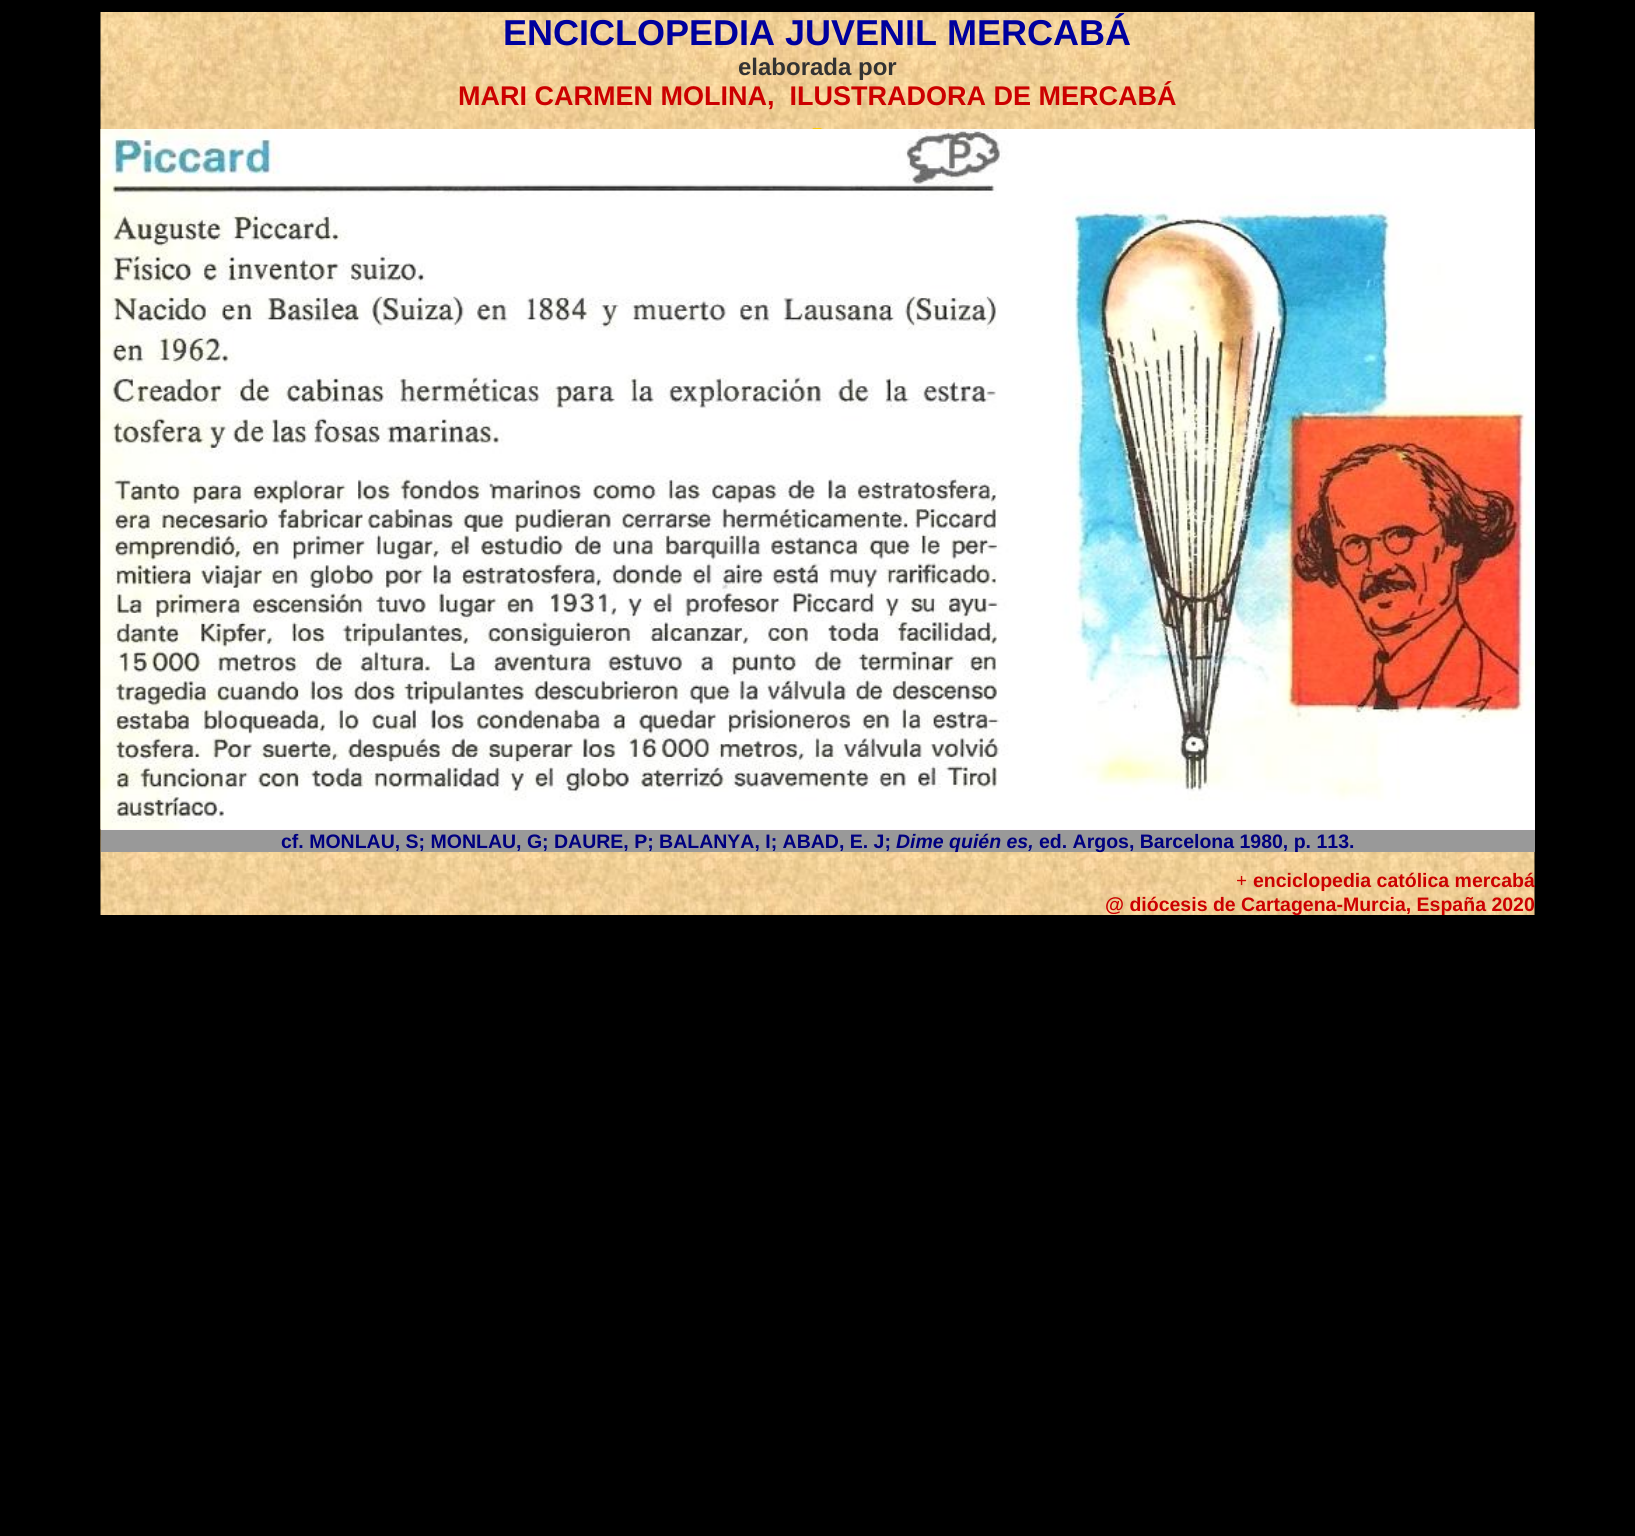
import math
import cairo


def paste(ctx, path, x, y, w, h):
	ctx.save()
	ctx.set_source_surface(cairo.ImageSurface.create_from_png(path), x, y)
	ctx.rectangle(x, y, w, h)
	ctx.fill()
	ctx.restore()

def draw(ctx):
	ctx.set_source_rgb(0, 0, 0)
	ctx.paint()
	paste(ctx, 'media/1.png', 100, 12, 1435, 903)
	ctx.select_font_face('Liberation Sans', cairo.FONT_SLANT_NORMAL, cairo.FONT_WEIGHT_BOLD)
	ctx.set_font_size(36)
	ctx.set_source_rgb(0, 0, 0.616)
	ctx.move_to(503, 45)
	ctx.show_text('ENCICLOPEDIA JUVENIL MERCABÁ')
	ctx.set_font_size(24)
	ctx.set_source_rgb(0.2, 0.2, 0.2)
	ctx.move_to(738, 75)
	ctx.show_text('elaborada por')
	ctx.set_font_size(27)
	ctx.set_source_rgb(0.8, 0, 0)
	ctx.move_to(458, 105)
	ctx.show_text('MARI CARMEN MOLINA,  ILUSTRADORA DE MERCABÁ')
	ctx.select_font_face('Liberation Sans')
	ctx.set_font_size(15)
	ctx.set_source_rgb(1, 0.8, 0)
	ctx.move_to(813, 126)
	ctx.show_text('_')
	ctx.set_source_rgb(1, 0.949, 1)
	ctx.rectangle(101, 129, 1434, 701)
	ctx.fill()
	paste(ctx, 'media/2.png', 100, 129, 1435, 701)
	ctx.set_source_rgb(0.6, 0.6, 0.6)
	ctx.rectangle(101, 830, 1434, 22)
	ctx.fill()
	ctx.select_font_face('Liberation Sans', cairo.FONT_SLANT_NORMAL, cairo.FONT_WEIGHT_BOLD)
	ctx.set_font_size(19.5)
	ctx.set_source_rgb(0, 0, 0.502)
	ctx.move_to(281, 848)
	ctx.show_text('cf. MONLAU, S; MONLAU, G; DAURE, P; BALANYA, I; ABAD, E. J;')
	ctx.select_font_face('Liberation Sans', cairo.FONT_SLANT_ITALIC, cairo.FONT_WEIGHT_BOLD)
	ctx.move_to(896, 848)
	ctx.show_text('Dime quién es,')
	ctx.select_font_face('Liberation Sans', cairo.FONT_SLANT_NORMAL, cairo.FONT_WEIGHT_BOLD)
	ctx.move_to(1039, 848)
	ctx.show_text('ed. Argos, Barcelona 1980, p. 113.')
	ctx.select_font_face('Liberation Serif', cairo.FONT_SLANT_NORMAL, cairo.FONT_WEIGHT_BOLD)
	ctx.set_source_rgb(0.8, 0, 0)
	ctx.move_to(1236, 887)
	ctx.show_text('+')
	ctx.select_font_face('Liberation Sans', cairo.FONT_SLANT_NORMAL, cairo.FONT_WEIGHT_BOLD)
	ctx.move_to(1253, 887)
	ctx.show_text('enciclopedia católica mercabá')
	ctx.move_to(1105, 911)
	ctx.show_text('@ diócesis de Cartagena-Murcia, España 2020')


surface = cairo.ImageSurface(cairo.FORMAT_RGB24, 1635, 1536)
ctx = cairo.Context(surface)
options = cairo.FontOptions()
options.set_hint_metrics(cairo.HINT_METRICS_OFF)
options.set_hint_style(cairo.HINT_STYLE_NONE)
ctx.set_font_options(options)
ctx.set_miter_limit(4)
draw(ctx)
surface.write_to_png('image.png')
